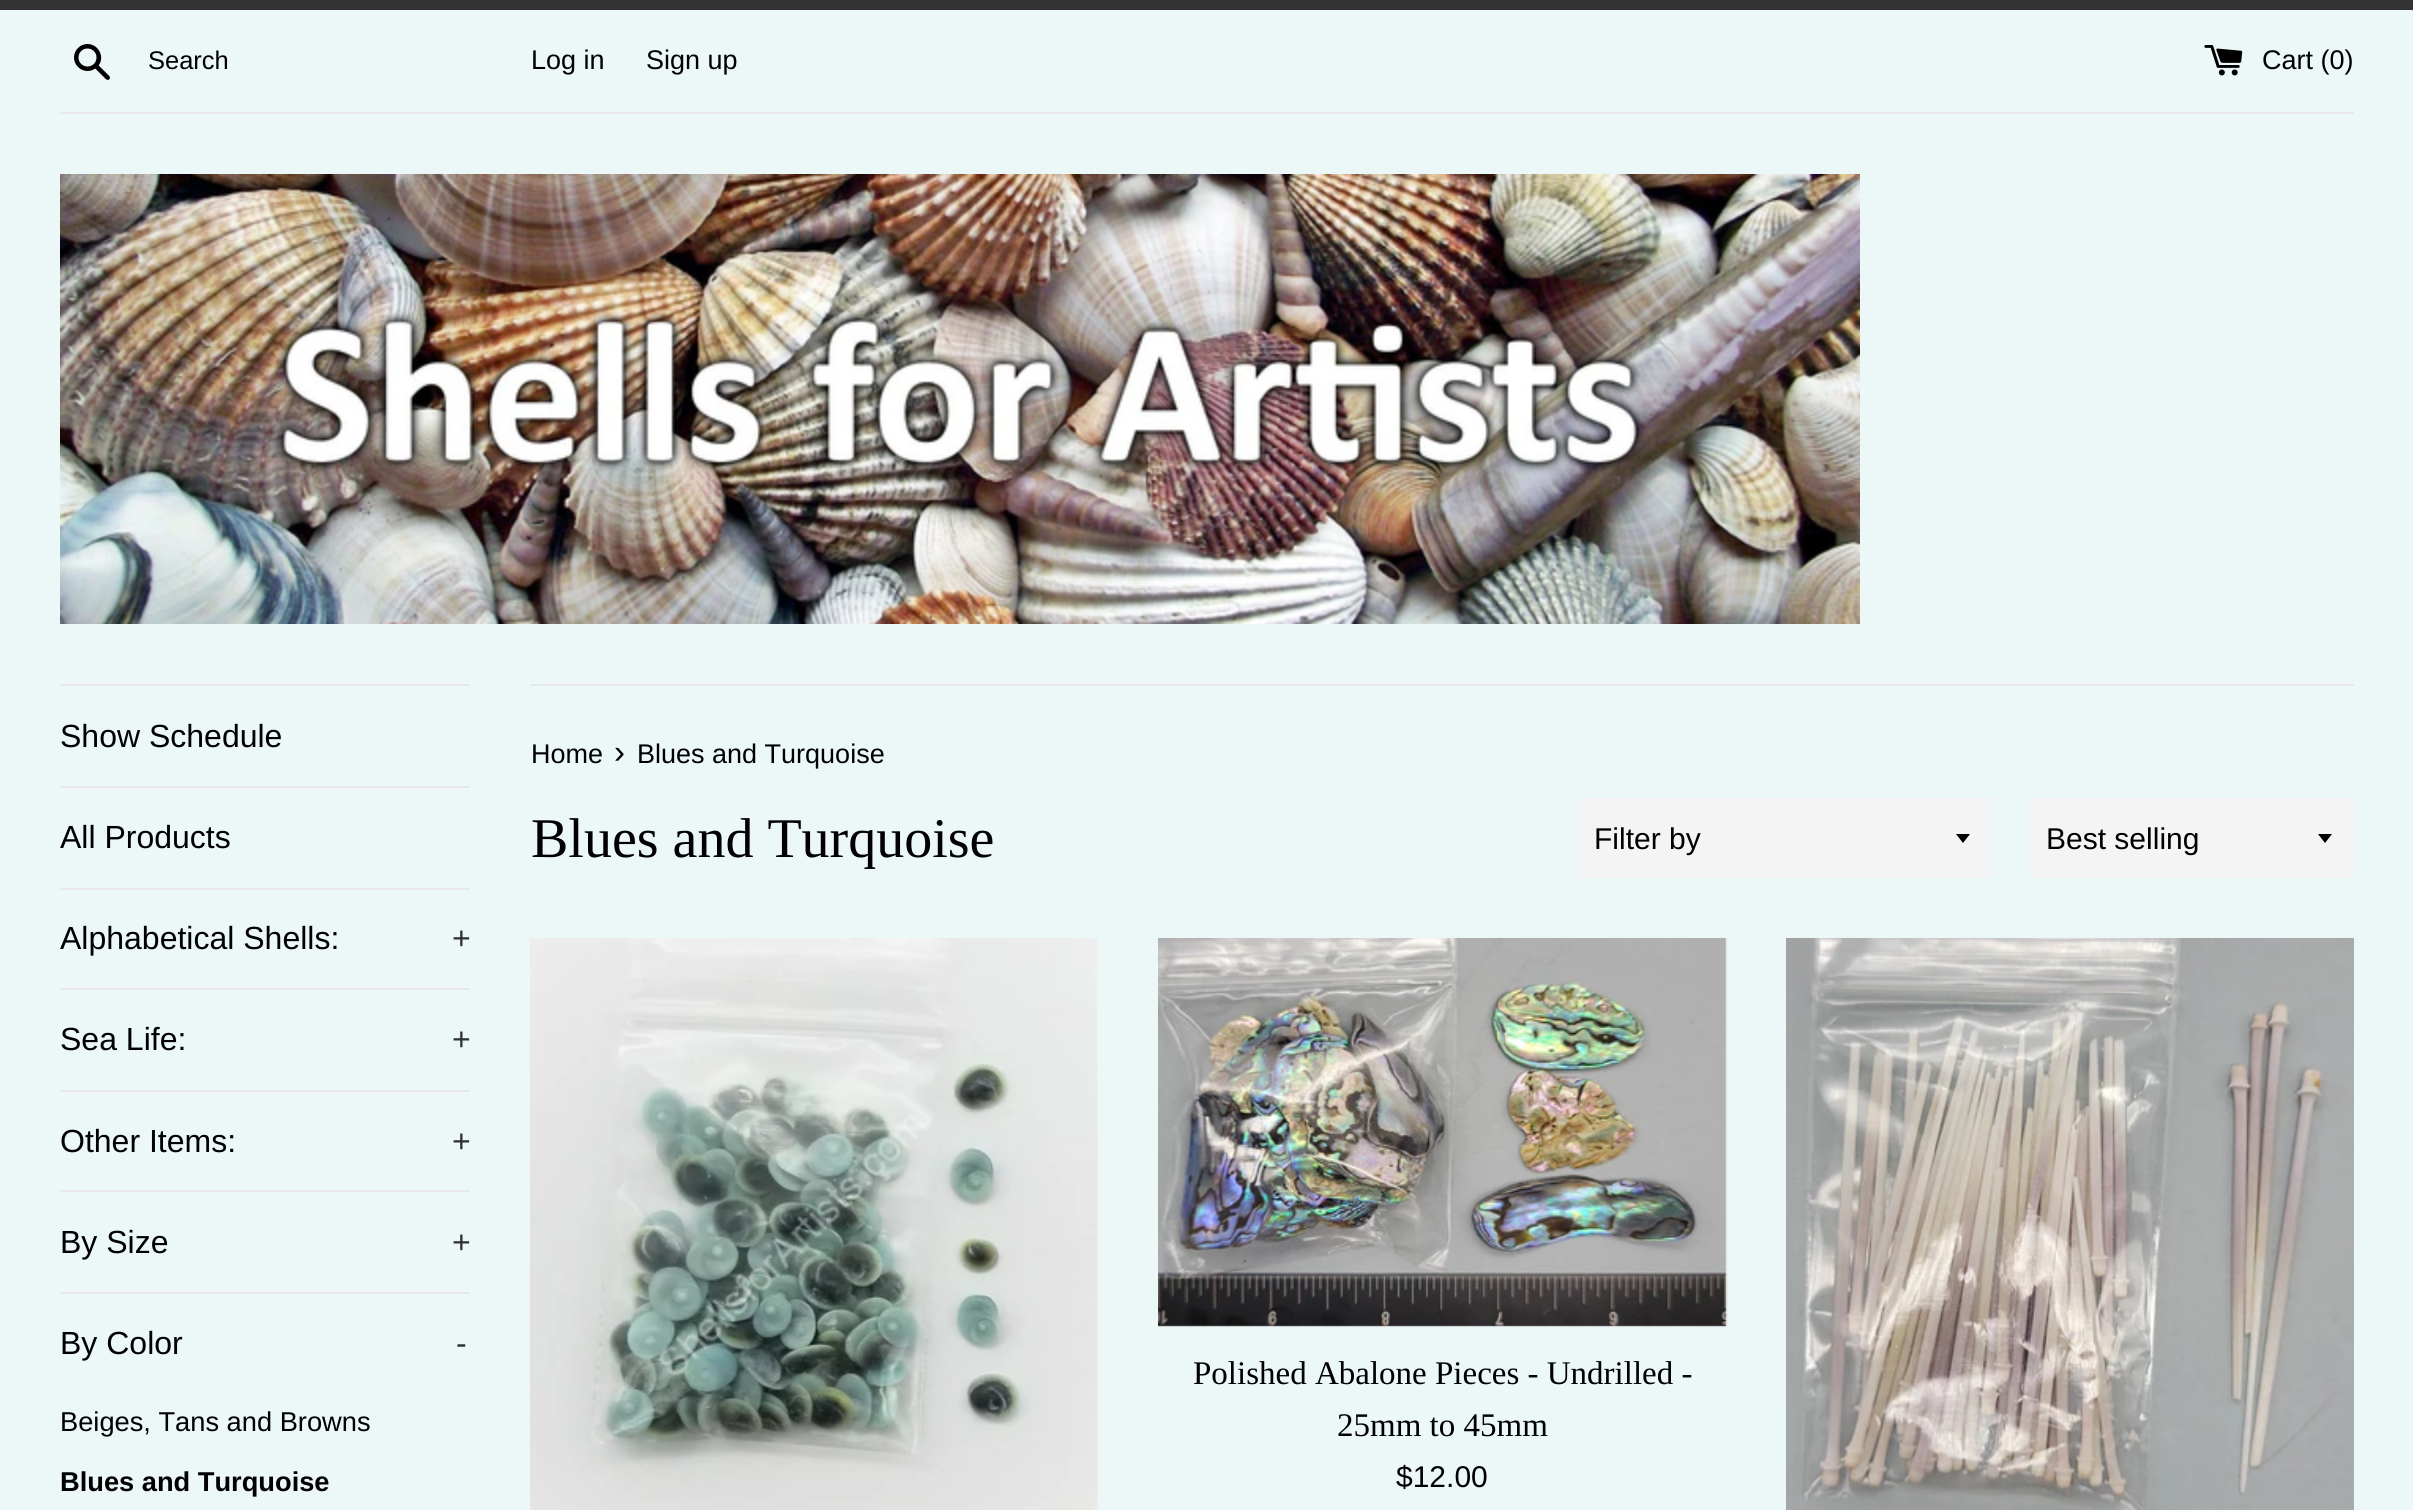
import math
import cairo


def paste(ctx, path, x, y, w, h):
	ctx.save()
	ctx.set_source_surface(cairo.ImageSurface.create_from_png(path), x, y)
	ctx.rectangle(x, y, w, h)
	ctx.fill()
	ctx.restore()

def draw(ctx):
	ctx.set_source_rgb(0.925, 0.965, 0.969)
	ctx.paint()
	ctx.set_source_rgb(0.2, 0.2, 0.2)
	ctx.rectangle(0, 0, 2413, 10)
	ctx.fill()
	paste(ctx, 'media/1.png', 74, 44, 36, 36)
	ctx.select_font_face('Liberation Sans')
	ctx.set_font_size(25.5)
	ctx.set_source_rgb(0, 0, 0)
	ctx.move_to(148, 69)
	ctx.show_text('Search')
	ctx.set_font_size(27)
	ctx.move_to(531, 69)
	ctx.show_text('Log in')
	ctx.move_to(646, 69)
	ctx.show_text('Sign up')
	paste(ctx, 'media/2.png', 2204, 45, 39, 31)
	ctx.move_to(2262, 69)
	ctx.show_text('Cart (0)')
	ctx.set_source_rgb(0.91, 0.91, 0.91)
	ctx.rectangle(60, 112, 2294, 2)
	ctx.fill()
	paste(ctx, 'media/3.png', 60, 174, 1800, 450)
	ctx.rectangle(60, 684, 410, 2)
	ctx.fill()
	ctx.rectangle(60, 786, 410, 2)
	ctx.fill()
	ctx.set_font_size(32)
	ctx.set_source_rgb(0, 0, 0)
	ctx.move_to(60, 747)
	ctx.show_text('Show Schedule')
	ctx.set_source_rgb(0.91, 0.91, 0.91)
	ctx.rectangle(60, 888, 410, 2)
	ctx.fill()
	ctx.set_source_rgb(0, 0, 0)
	ctx.move_to(60, 848)
	ctx.show_text('All Products')
	ctx.set_source_rgb(0.91, 0.91, 0.91)
	ctx.rectangle(60, 988, 410, 2)
	ctx.fill()
	ctx.set_source_rgb(0, 0, 0)
	ctx.move_to(60, 949)
	ctx.show_text('Alphabetical Shells:')
	ctx.set_source_rgb(0.184, 0.192, 0.192)
	ctx.move_to(452, 949)
	ctx.show_text('+')
	ctx.set_source_rgb(0.91, 0.91, 0.91)
	ctx.rectangle(60, 1090, 410, 2)
	ctx.fill()
	ctx.set_source_rgb(0, 0, 0)
	ctx.move_to(60, 1050)
	ctx.show_text('Sea Life:')
	ctx.set_source_rgb(0.184, 0.192, 0.192)
	ctx.move_to(452, 1050)
	ctx.show_text('+')
	ctx.set_source_rgb(0.91, 0.91, 0.91)
	ctx.rectangle(60, 1190, 410, 2)
	ctx.fill()
	ctx.set_source_rgb(0, 0, 0)
	ctx.move_to(60, 1152)
	ctx.show_text('Other Items:')
	ctx.set_source_rgb(0.184, 0.192, 0.192)
	ctx.move_to(452, 1152)
	ctx.show_text('+')
	ctx.set_source_rgb(0.91, 0.91, 0.91)
	ctx.rectangle(60, 1292, 410, 2)
	ctx.fill()
	ctx.set_source_rgb(0, 0, 0)
	ctx.move_to(60, 1253)
	ctx.show_text('By Size')
	ctx.set_source_rgb(0.184, 0.192, 0.192)
	ctx.move_to(452, 1253)
	ctx.show_text('+')
	ctx.set_source_rgb(0, 0, 0)
	ctx.move_to(60, 1354)
	ctx.show_text('By Color')
	ctx.set_source_rgb(0.184, 0.192, 0.192)
	ctx.move_to(456, 1354)
	ctx.show_text('-')
	ctx.set_font_size(27.25)
	ctx.set_source_rgb(0, 0, 0)
	ctx.move_to(60, 1431)
	ctx.show_text('Beiges, Tans and Browns')
	ctx.select_font_face('Liberation Sans', cairo.FONT_SLANT_NORMAL, cairo.FONT_WEIGHT_BOLD)
	ctx.move_to(60, 1491)
	ctx.show_text('Blues and Turquoise')
	ctx.set_source_rgb(0.91, 0.91, 0.91)
	ctx.rectangle(530, 684, 1824, 2)
	ctx.fill()
	ctx.select_font_face('Liberation Sans')
	ctx.set_font_size(27)
	ctx.set_source_rgb(0, 0, 0)
	ctx.move_to(531, 763)
	ctx.show_text('Home')
	ctx.set_font_size(33)
	ctx.move_to(614, 763)
	ctx.show_text('›')
	ctx.set_font_size(27)
	ctx.move_to(637, 763)
	ctx.show_text('Blues and Turquoise')
	ctx.select_font_face('Liberation Serif')
	ctx.set_font_size(56)
	ctx.move_to(531, 857)
	ctx.show_text('Blues and Turquoise')
	ctx.set_source_rgb(0.957, 0.957, 0.957)
	ctx.rectangle(1578, 798, 414, 80)
	ctx.fill()
	ctx.set_source_rgb(0, 0, 0)
	ctx.new_path()
	ctx.move_to(1956, 834)
	ctx.line_to(1963, 843)
	ctx.line_to(1970, 834)
	ctx.close_path()
	ctx.fill()
	ctx.select_font_face('Liberation Sans')
	ctx.set_font_size(30)
	ctx.move_to(1594, 849)
	ctx.show_text('Filter by')
	ctx.set_source_rgb(0.957, 0.957, 0.957)
	ctx.rectangle(2030, 798, 324, 80)
	ctx.fill()
	ctx.set_source_rgb(0, 0, 0)
	ctx.new_path()
	ctx.move_to(2318, 834)
	ctx.line_to(2325, 843)
	ctx.line_to(2332, 834)
	ctx.close_path()
	ctx.fill()
	ctx.move_to(2046, 849)
	ctx.show_text('Best selling')
	paste(ctx, 'media/4.png', 530, 938, 568, 572)
	paste(ctx, 'media/5.png', 1158, 938, 570, 389)
	ctx.select_font_face('Liberation Serif')
	ctx.set_font_size(33)
	ctx.move_to(1193, 1384)
	ctx.show_text('Polished Abalone Pieces - Undrilled -')
	ctx.move_to(1337, 1436)
	ctx.show_text('25mm to 45mm')
	ctx.select_font_face('Liberation Sans')
	ctx.set_font_size(30)
	ctx.move_to(1396, 1487)
	ctx.show_text('$12.00')
	paste(ctx, 'media/6.png', 1786, 938, 568, 572)


surface = cairo.ImageSurface(cairo.FORMAT_RGB24, 2413, 1510)
ctx = cairo.Context(surface)
options = cairo.FontOptions()
options.set_hint_metrics(cairo.HINT_METRICS_OFF)
options.set_hint_style(cairo.HINT_STYLE_NONE)
ctx.set_font_options(options)
ctx.set_miter_limit(4)
draw(ctx)
surface.write_to_png('image.png')
